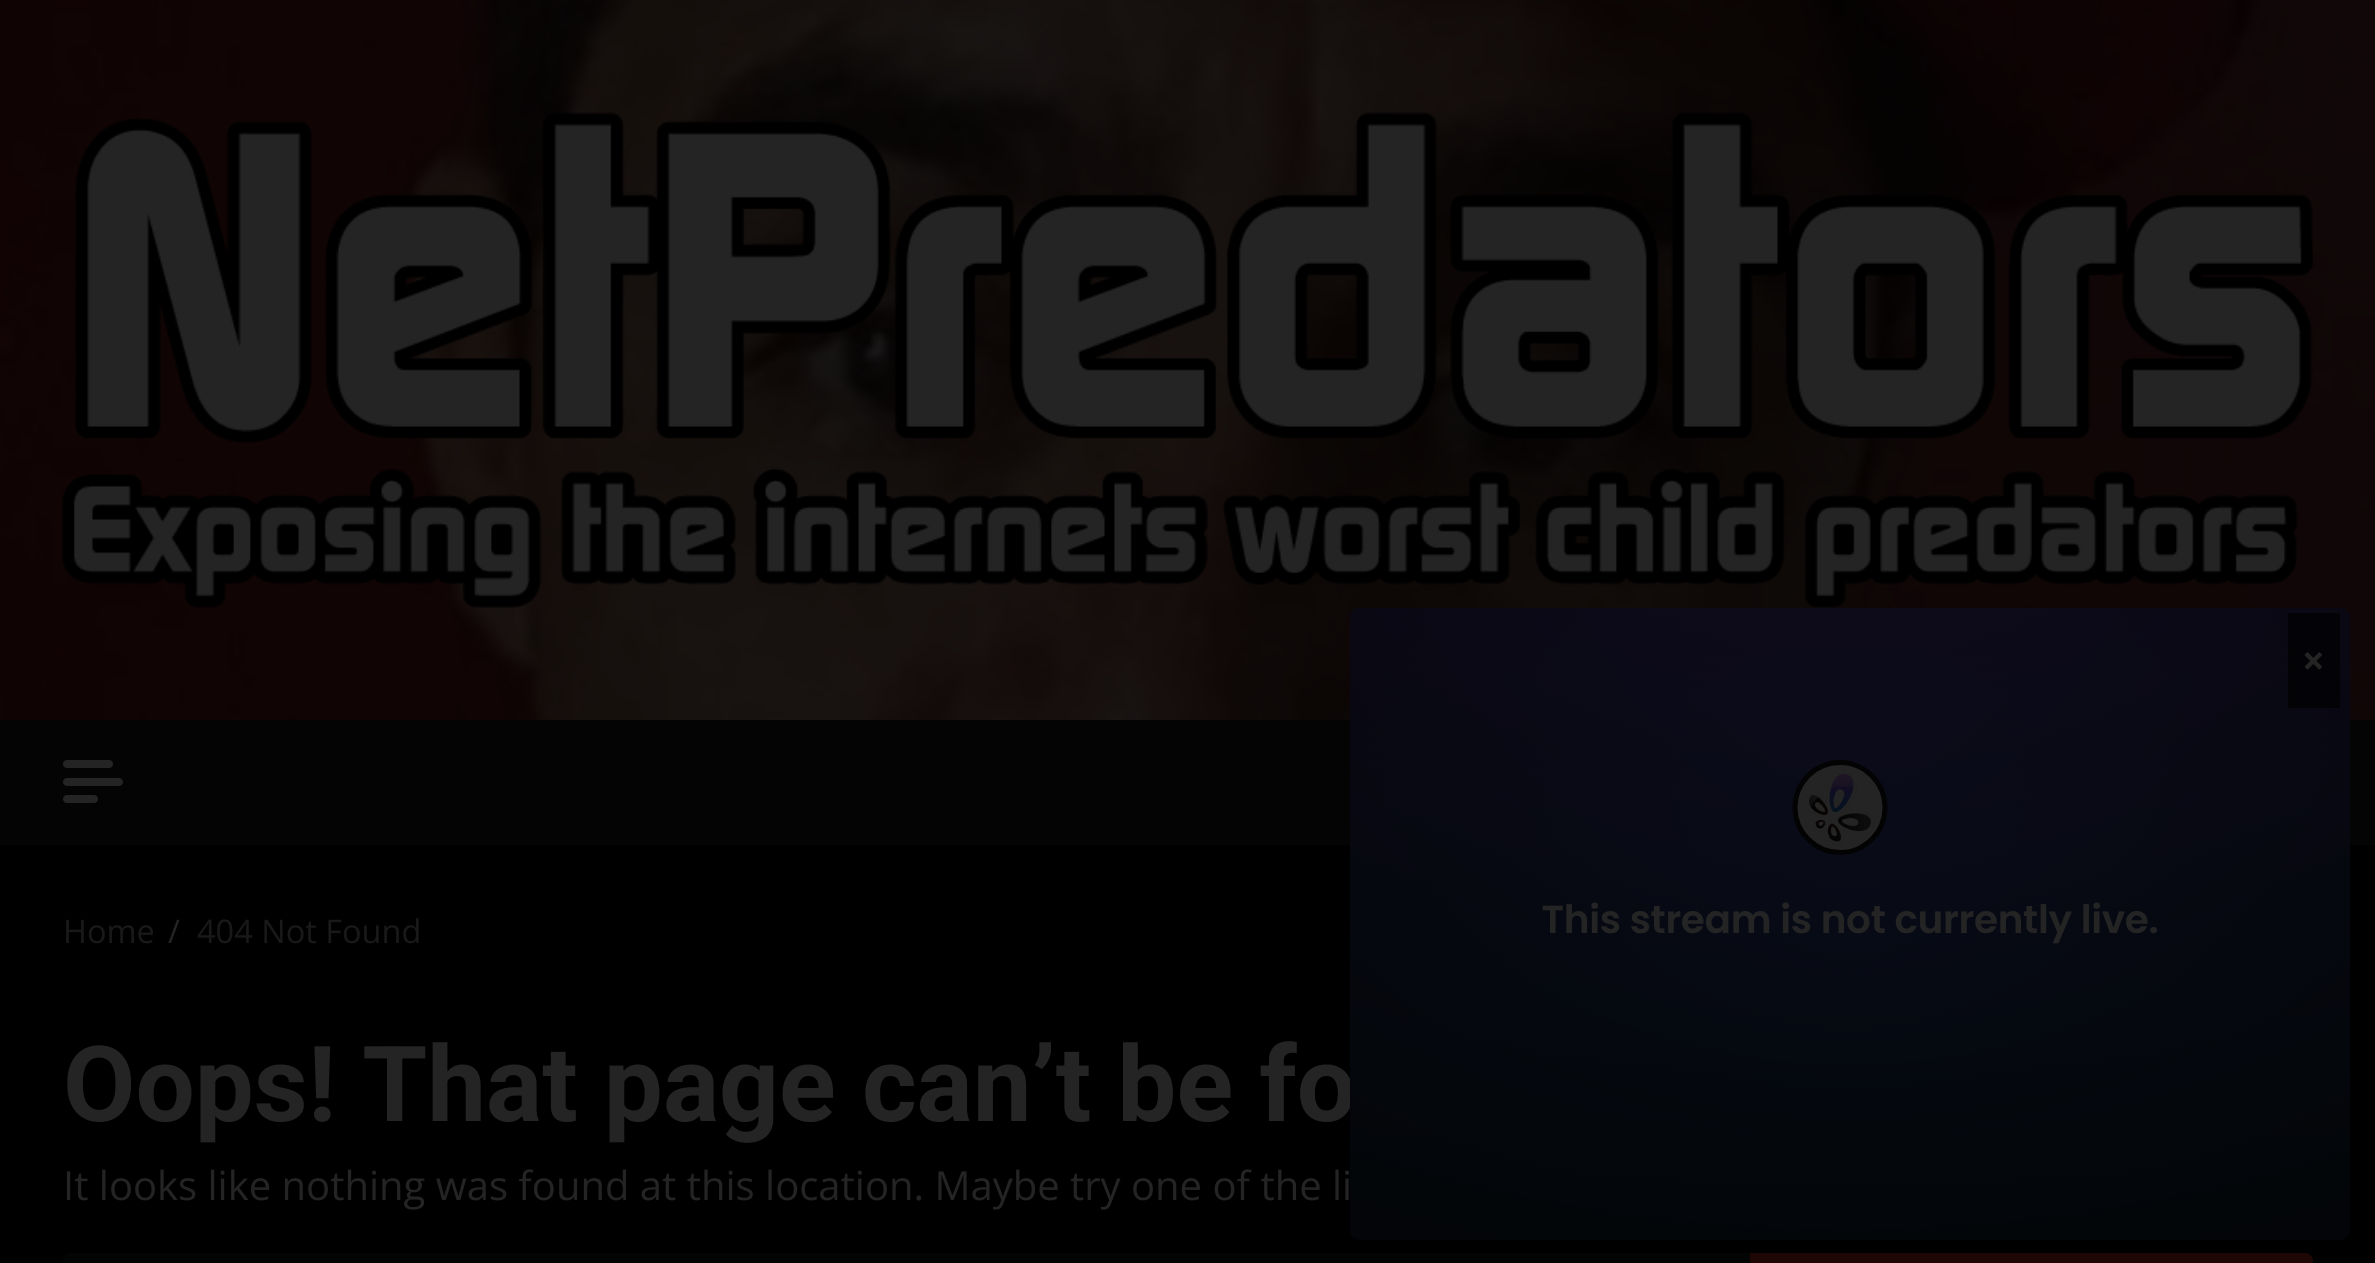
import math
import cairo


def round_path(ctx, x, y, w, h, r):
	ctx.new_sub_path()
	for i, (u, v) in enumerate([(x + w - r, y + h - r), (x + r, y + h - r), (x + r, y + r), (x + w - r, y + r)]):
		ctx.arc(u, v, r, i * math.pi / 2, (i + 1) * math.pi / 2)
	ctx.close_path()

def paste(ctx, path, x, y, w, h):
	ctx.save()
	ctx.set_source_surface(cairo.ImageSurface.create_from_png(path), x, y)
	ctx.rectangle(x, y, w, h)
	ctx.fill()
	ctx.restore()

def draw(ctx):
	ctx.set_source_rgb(0, 0, 0)
	ctx.paint()
	paste(ctx, 'media/2.png', 0, 0, 2375, 720)
	ctx.set_source_rgb(0.016, 0.016, 0.016)
	ctx.rectangle(0, 720, 2375, 125)
	ctx.fill()
	ctx.select_font_face('Roboto', cairo.FONT_SLANT_NORMAL, cairo.FONT_WEIGHT_BOLD)
	ctx.set_font_size(105)
	ctx.set_source_rgb(0.141, 0.141, 0.141)
	ctx.move_to(63, 1121)
	ctx.show_text('Oops! That page can’t be fo')
	ctx.set_source_rgb(0, 0, 0)
	round_path(ctx, 1350, 608, 1000, 632, 10)
	ctx.fill()
	paste(ctx, 'media/1.png', 1350, 608, 1000, 632)
	ctx.set_source_rgba(0, 0, 0, 0.7)
	ctx.rectangle(2288, 613, 52, 95)
	ctx.fill()
	ctx.select_font_face('Open Sans', cairo.FONT_SLANT_NORMAL, cairo.FONT_WEIGHT_BOLD)
	ctx.set_font_size(40)
	ctx.set_source_rgb(0.141, 0.141, 0.141)
	ctx.move_to(2302, 675)
	ctx.show_text('×')
	paste(ctx, 'media/3.png', 62, 112, 2251, 496)
	round_path(ctx, 63, 760, 50, 8, 4)
	ctx.fill()
	round_path(ctx, 63, 778, 60, 8, 4)
	ctx.fill()
	round_path(ctx, 63, 795, 35, 8, 4)
	ctx.fill()
	ctx.select_font_face('Open Sans')
	ctx.set_font_size(32.5)
	ctx.set_source_rgb(0.098, 0.098, 0.098)
	ctx.move_to(63, 943)
	ctx.show_text('Home')
	ctx.set_source_rgb(0.141, 0.141, 0.141)
	ctx.move_to(168, 943)
	ctx.show_text('/')
	ctx.set_source_rgb(0.098, 0.098, 0.098)
	ctx.move_to(197, 943)
	ctx.show_text('404 Not Found')
	ctx.set_font_size(40)
	ctx.set_source_rgb(0.141, 0.141, 0.141)
	ctx.move_to(63, 1200)
	ctx.show_text('It looks like nothing was found at this location. Maybe try one of the li')
	ctx.set_source_rgb(0.016, 0.016, 0.016)
	ctx.new_path()
	ctx.move_to(71, 1253)
	ctx.line_to(1750, 1253)
	ctx.line_to(1750, 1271)
	ctx.line_to(71, 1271)
	ctx.curve_to(66.5, 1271, 63, 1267.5, 63, 1263)
	ctx.line_to(63, 1261)
	ctx.curve_to(63, 1256.5, 66.5, 1253, 71, 1253)
	ctx.close_path()
	ctx.fill()
	ctx.set_source_rgb(0.118, 0.024, 0.02)
	ctx.new_path()
	ctx.move_to(1750, 1253)
	ctx.line_to(2305, 1253)
	ctx.curve_to(2309.5, 1253, 2313, 1256.5, 2313, 1261)
	ctx.line_to(2313, 1263)
	ctx.curve_to(2313, 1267.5, 2309.5, 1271, 2305, 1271)
	ctx.line_to(1750, 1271)
	ctx.close_path()
	ctx.fill()


surface = cairo.ImageSurface(cairo.FORMAT_RGB24, 2375, 1263)
ctx = cairo.Context(surface)
options = cairo.FontOptions()
options.set_hint_metrics(cairo.HINT_METRICS_OFF)
options.set_hint_style(cairo.HINT_STYLE_NONE)
ctx.set_font_options(options)
ctx.set_miter_limit(4)
draw(ctx)
surface.write_to_png('image.png')
